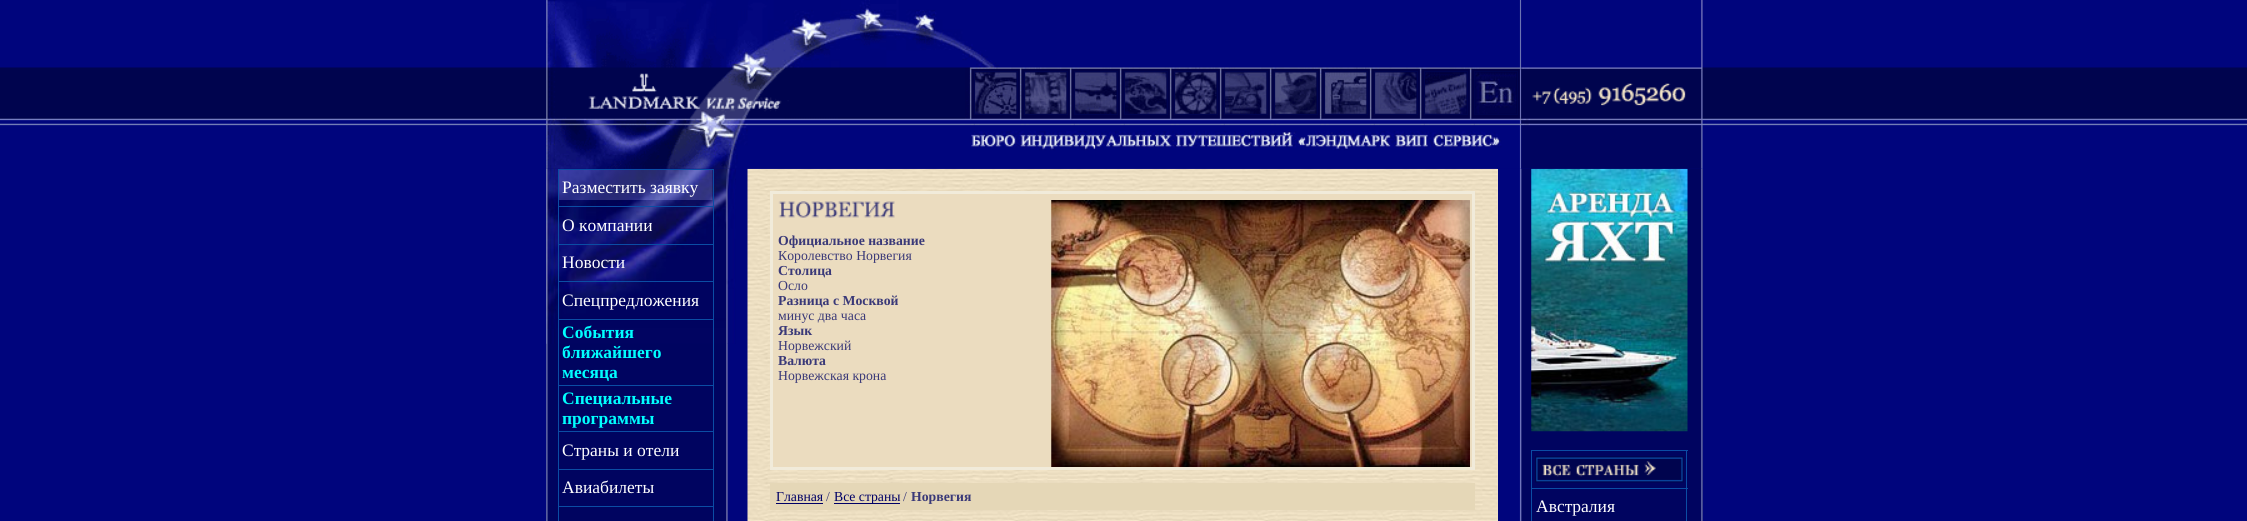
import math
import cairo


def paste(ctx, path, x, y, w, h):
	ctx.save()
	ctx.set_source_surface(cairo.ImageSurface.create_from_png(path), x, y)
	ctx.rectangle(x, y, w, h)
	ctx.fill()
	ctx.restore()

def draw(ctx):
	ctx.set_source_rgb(0, 0.02, 0.49)
	ctx.paint()
	paste(ctx, 'media/1.png', 0, 67, 2247, 59)
	ctx.set_source_rgb(0, 0.016, 0.376)
	ctx.rectangle(546, 169, 1157, 352)
	ctx.fill()
	paste(ctx, 'media/5.png', 546, 168, 1157, 353)
	paste(ctx, 'media/6.png', 546, 168, 190, 176)
	ctx.set_source_rgb(0.953, 0.898, 0.784)
	ctx.rectangle(1497, 169, 1, 352)
	ctx.fill()
	paste(ctx, 'media/8.png', 747, 168, 751, 353)
	paste(ctx, 'media/2.png', 546, 0, 419, 169)
	paste(ctx, 'media/3.png', 965, 0, 557, 169)
	paste(ctx, 'media/11.png', 1531, 168, 157, 264)
	paste(ctx, 'media/4.png', 1521, 0, 182, 169)
	ctx.rectangle(974.5, 71.5, 43, 43)
	ctx.set_source_rgb(0, 0.016, 0.306)
	ctx.set_line_width(1)
	ctx.stroke()
	ctx.rectangle(1024.5, 71.5, 43, 43)
	ctx.stroke()
	ctx.rectangle(1074.5, 71.5, 43, 43)
	ctx.stroke()
	ctx.rectangle(1124.5, 71.5, 43, 43)
	ctx.stroke()
	ctx.rectangle(1174.5, 71.5, 43, 43)
	ctx.stroke()
	ctx.rectangle(1224.5, 71.5, 43, 43)
	ctx.stroke()
	ctx.rectangle(1274.5, 71.5, 43, 43)
	ctx.stroke()
	ctx.rectangle(1324.5, 71.5, 43, 43)
	ctx.stroke()
	ctx.rectangle(1374.5, 71.5, 43, 43)
	ctx.stroke()
	ctx.rectangle(1424.5, 71.5, 43, 43)
	ctx.stroke()
	ctx.rectangle(1474.5, 71.5, 43, 43)
	ctx.stroke()
	paste(ctx, 'media/7.png', 559, 170, 154, 30)
	ctx.set_source_rgb(0.043, 0.302, 0.643)
	ctx.rectangle(558, 169, 156, 1)
	ctx.rectangle(558, 206, 156, 1)
	ctx.rectangle(558, 244, 156, 1)
	ctx.rectangle(558, 281, 156, 1)
	ctx.rectangle(558, 319, 156, 1)
	ctx.rectangle(558, 385, 156, 1)
	ctx.rectangle(558, 431, 156, 1)
	ctx.rectangle(558, 469, 156, 1)
	ctx.rectangle(558, 506, 156, 1)
	ctx.rectangle(713, 506, 1, 15)
	ctx.rectangle(713, 469, 1, 39)
	ctx.rectangle(713, 431, 1, 39)
	ctx.rectangle(713, 385, 1, 48)
	ctx.rectangle(713, 319, 1, 67)
	ctx.rectangle(713, 281, 1, 39)
	ctx.rectangle(713, 244, 1, 39)
	ctx.rectangle(713, 206, 1, 39)
	ctx.rectangle(713, 169, 1, 39)
	ctx.rectangle(558, 506, 1, 15)
	ctx.rectangle(558, 469, 1, 39)
	ctx.rectangle(558, 431, 1, 39)
	ctx.rectangle(558, 385, 1, 48)
	ctx.rectangle(558, 319, 1, 67)
	ctx.rectangle(558, 281, 1, 39)
	ctx.rectangle(558, 244, 1, 39)
	ctx.rectangle(558, 206, 1, 39)
	ctx.rectangle(558, 169, 1, 39)
	ctx.fill()
	ctx.select_font_face('Liberation Serif')
	ctx.set_font_size(17.5)
	ctx.set_source_rgb(1, 1, 1)
	for x, y, s in [
		(562, 193, 'Разместить заявку'),
		(562, 231, 'О компании'),
		(562, 268, 'Новости'),
		(562, 306, 'Спецпредложения'),
	]:
		ctx.move_to(x, y)
		ctx.show_text(s)
	ctx.select_font_face('Liberation Serif', cairo.FONT_SLANT_NORMAL, cairo.FONT_WEIGHT_BOLD)
	ctx.set_source_rgb(0, 1, 1)
	for x, y, s in [
		(562, 338, 'События'),
		(562, 358, 'ближайшего'),
		(562, 378, 'месяца'),
		(562, 404, 'Специальные'),
		(562, 424, 'программы'),
	]:
		ctx.move_to(x, y)
		ctx.show_text(s)
	ctx.select_font_face('Liberation Serif')
	ctx.set_source_rgb(1, 1, 1)
	ctx.move_to(562, 456)
	ctx.show_text('Страны и отели')
	ctx.move_to(562, 493)
	ctx.show_text('Авиабилеты')
	ctx.set_source_rgb(0.918, 0.863, 0.749)
	ctx.rectangle(773, 194, 699, 273)
	ctx.fill()
	paste(ctx, 'media/9.png', 1051, 200, 419, 267)
	ctx.rectangle(771.5, 192.5, 702, 276)
	ctx.set_source_rgb(0.945, 0.918, 0.855)
	ctx.set_line_width(3)
	ctx.stroke()
	paste(ctx, 'media/10.png', 778, 201, 117, 17)
	ctx.select_font_face('Liberation Serif', cairo.FONT_SLANT_NORMAL, cairo.FONT_WEIGHT_BOLD)
	ctx.set_font_size(13.75)
	ctx.set_source_rgb(0.227, 0.224, 0.471)
	ctx.move_to(778, 245)
	ctx.show_text('Официальное название')
	ctx.select_font_face('Liberation Serif')
	ctx.move_to(778, 260)
	ctx.show_text('Королевство Норвегия')
	ctx.select_font_face('Liberation Serif', cairo.FONT_SLANT_NORMAL, cairo.FONT_WEIGHT_BOLD)
	ctx.move_to(778, 275)
	ctx.show_text('Столица')
	ctx.select_font_face('Liberation Serif')
	ctx.move_to(778, 290)
	ctx.show_text('Осло')
	ctx.select_font_face('Liberation Serif', cairo.FONT_SLANT_NORMAL, cairo.FONT_WEIGHT_BOLD)
	ctx.move_to(778, 305)
	ctx.show_text('Разница с Москвой')
	ctx.select_font_face('Liberation Serif')
	ctx.move_to(778, 320)
	ctx.show_text('минус два часа')
	ctx.select_font_face('Liberation Serif', cairo.FONT_SLANT_NORMAL, cairo.FONT_WEIGHT_BOLD)
	ctx.move_to(778, 335)
	ctx.show_text('Язык')
	ctx.select_font_face('Liberation Serif')
	ctx.move_to(778, 350)
	ctx.show_text('Норвежский')
	ctx.select_font_face('Liberation Serif', cairo.FONT_SLANT_NORMAL, cairo.FONT_WEIGHT_BOLD)
	ctx.move_to(778, 365)
	ctx.show_text('Валюта')
	ctx.select_font_face('Liberation Serif')
	ctx.move_to(778, 380)
	ctx.show_text('Норвежская крона')
	ctx.set_source_rgb(0.898, 0.843, 0.718)
	ctx.rectangle(770, 483, 705, 27)
	ctx.fill()
	ctx.set_source_rgb(0, 0, 0.4)
	ctx.move_to(776, 501)
	ctx.show_text('Главная')
	ctx.rectangle(776, 503, 47, 1)
	ctx.fill()
	ctx.set_source_rgb(0.227, 0.224, 0.471)
	ctx.move_to(826, 501)
	ctx.show_text('/')
	ctx.set_source_rgb(0, 0, 0.4)
	ctx.rectangle(834, 503, 66, 1)
	ctx.fill()
	ctx.move_to(834, 501)
	ctx.show_text('Все страны')
	ctx.set_source_rgb(0.227, 0.224, 0.471)
	ctx.move_to(903, 501)
	ctx.show_text('/')
	ctx.select_font_face('Liberation Serif', cairo.FONT_SLANT_NORMAL, cairo.FONT_WEIGHT_BOLD)
	ctx.move_to(911, 501)
	ctx.show_text('Норвегия')
	ctx.set_source_rgb(0.043, 0.302, 0.643)
	ctx.rectangle(1531, 450, 157, 1)
	ctx.rectangle(1531, 488, 157, 1)
	ctx.rectangle(1686, 488, 1, 33)
	ctx.rectangle(1686, 450, 1, 39)
	ctx.rectangle(1531, 488, 1, 33)
	ctx.rectangle(1531, 450, 1, 39)
	ctx.fill()
	paste(ctx, 'media/12.png', 1535, 456, 149, 27)
	ctx.select_font_face('Liberation Serif')
	ctx.set_font_size(17.5)
	ctx.set_source_rgb(1, 1, 1)
	ctx.move_to(1536, 512)
	ctx.show_text('Австралия')


surface = cairo.ImageSurface(cairo.FORMAT_RGB24, 2247, 521)
ctx = cairo.Context(surface)
options = cairo.FontOptions()
options.set_hint_metrics(cairo.HINT_METRICS_OFF)
options.set_hint_style(cairo.HINT_STYLE_NONE)
ctx.set_font_options(options)
ctx.set_miter_limit(4)
draw(ctx)
surface.write_to_png('image.png')
